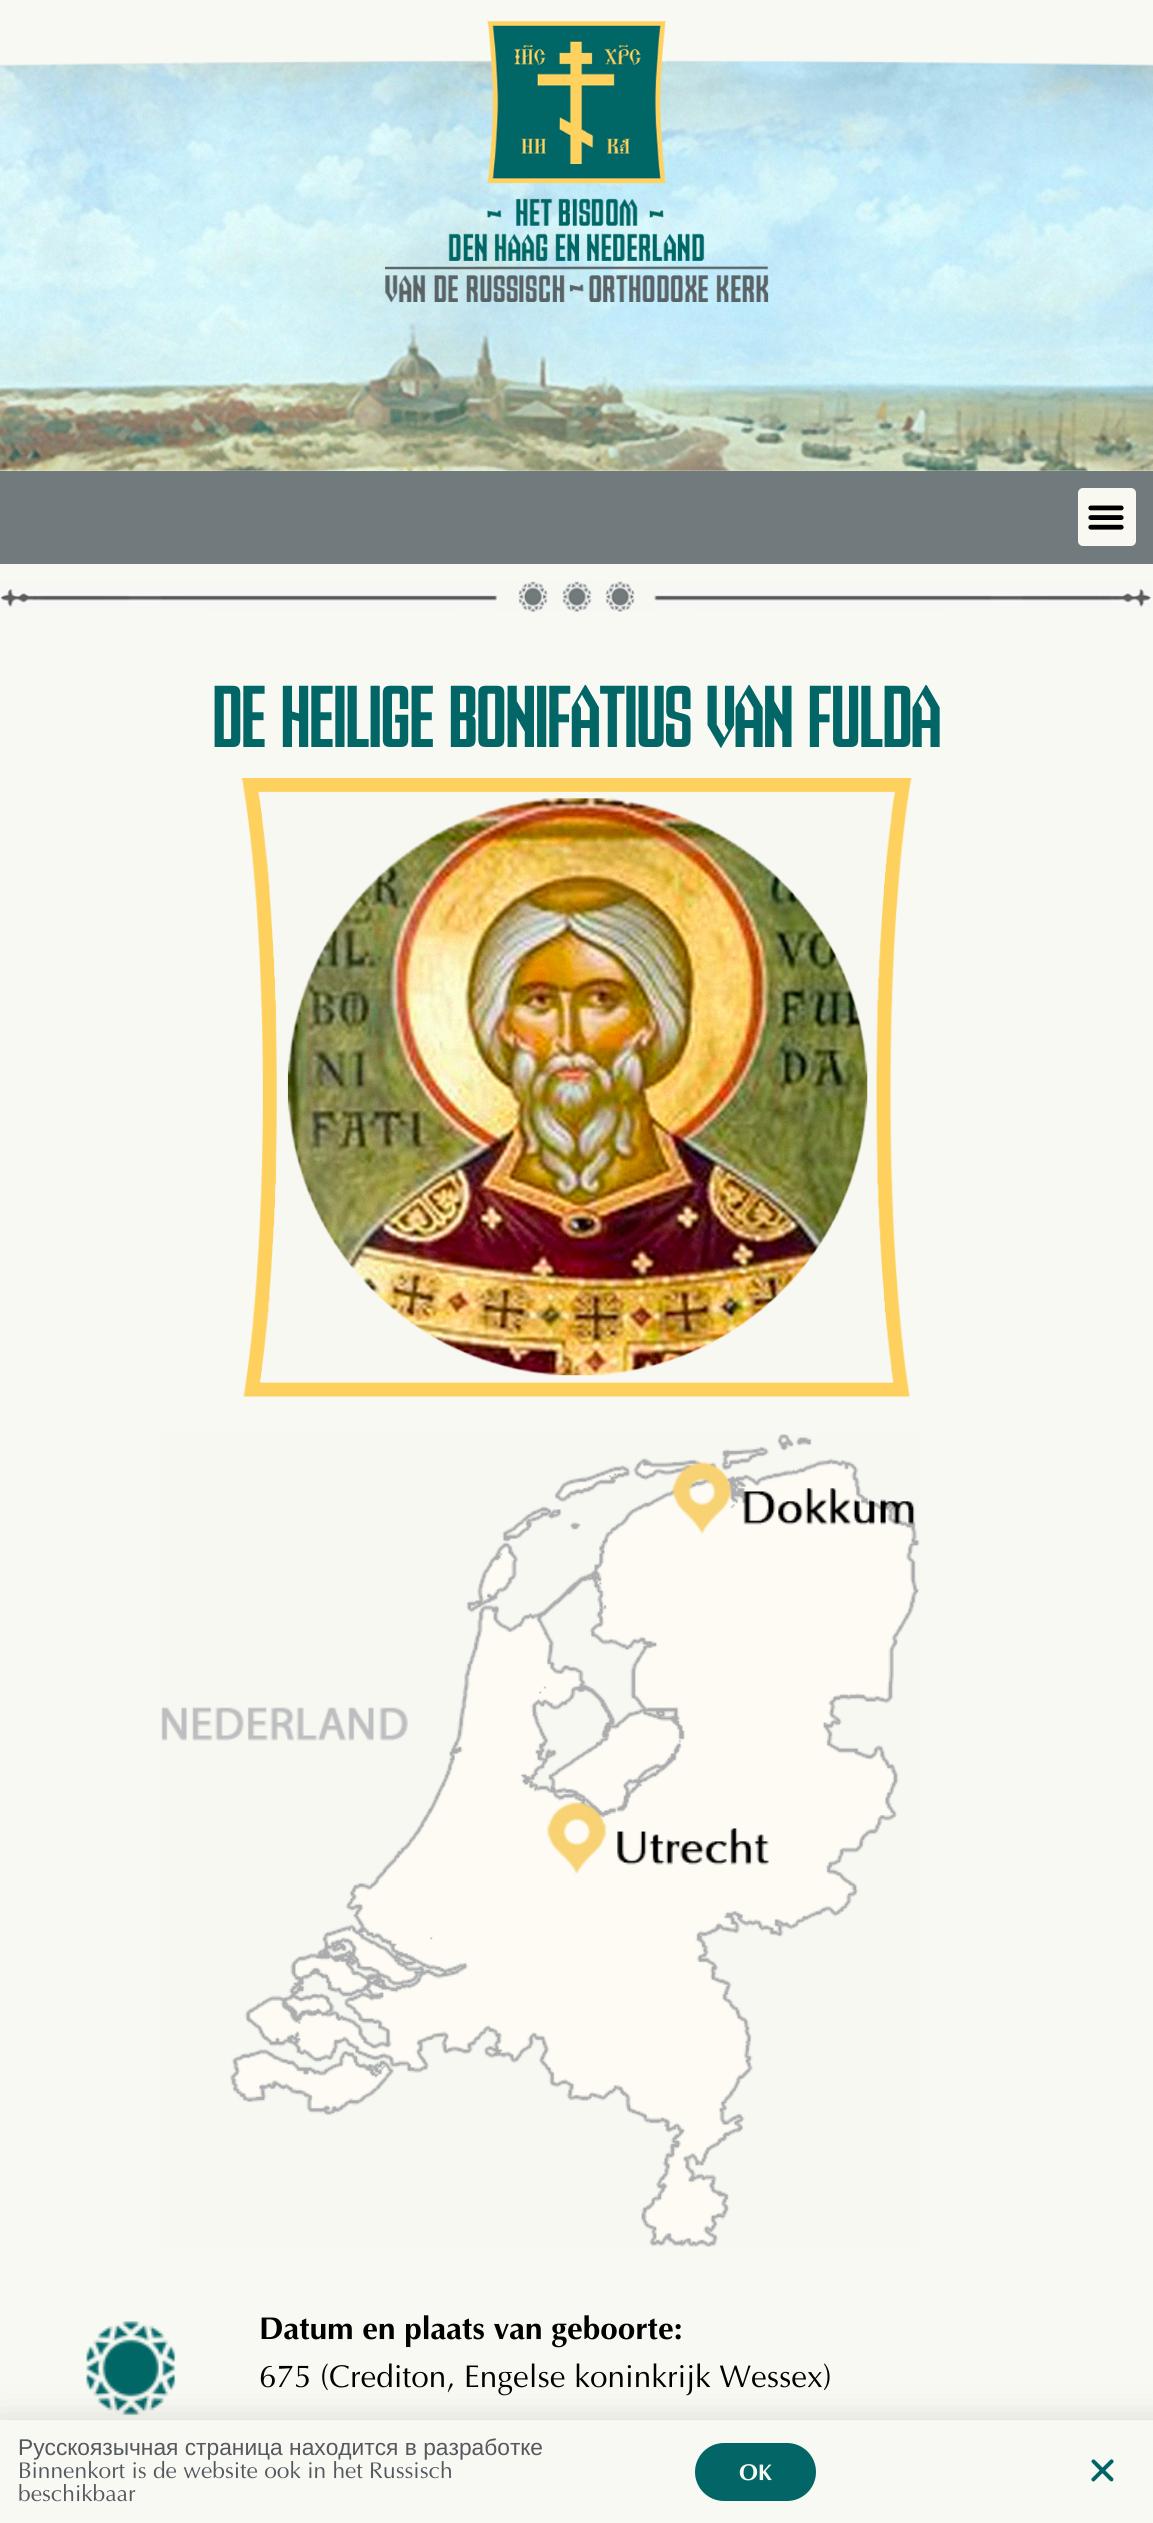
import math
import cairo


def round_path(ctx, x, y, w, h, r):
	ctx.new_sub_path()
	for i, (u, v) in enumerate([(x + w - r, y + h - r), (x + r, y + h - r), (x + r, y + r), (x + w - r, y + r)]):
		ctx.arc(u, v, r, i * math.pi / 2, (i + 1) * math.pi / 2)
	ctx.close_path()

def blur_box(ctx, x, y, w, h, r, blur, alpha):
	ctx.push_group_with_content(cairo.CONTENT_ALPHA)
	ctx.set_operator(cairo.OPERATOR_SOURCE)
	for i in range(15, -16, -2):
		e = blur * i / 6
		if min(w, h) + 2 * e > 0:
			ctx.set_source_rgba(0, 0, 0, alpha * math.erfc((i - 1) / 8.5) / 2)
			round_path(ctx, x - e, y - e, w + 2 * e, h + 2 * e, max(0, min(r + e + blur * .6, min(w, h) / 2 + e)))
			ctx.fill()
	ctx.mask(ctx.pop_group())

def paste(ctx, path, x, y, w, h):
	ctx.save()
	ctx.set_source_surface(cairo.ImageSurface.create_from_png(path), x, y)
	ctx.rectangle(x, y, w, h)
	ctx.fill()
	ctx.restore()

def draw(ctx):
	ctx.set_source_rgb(0.973, 0.973, 0.953)
	ctx.paint()
	paste(ctx, 'media/1.png', 0, 60, 1153, 411)
	paste(ctx, 'media/2.png', 385, 21, 384, 281)
	ctx.set_source_rgb(0.443, 0.478, 0.486)
	ctx.rectangle(0, 471, 1153, 93)
	ctx.fill()
	ctx.set_source_rgb(0.973, 0.973, 0.949)
	round_path(ctx, 1078, 488, 58, 58, 5)
	ctx.fill()
	paste(ctx, 'media/3.png', 1088, 505, 36, 25)
	paste(ctx, 'media/4.png', 0, 581, 1152, 31)
	ctx.select_font_face('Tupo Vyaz', cairo.FONT_SLANT_NORMAL, cairo.FONT_WEIGHT_BOLD)
	ctx.set_font_size(87.5)
	ctx.set_source_rgb(0.008, 0.396, 0.4)
	ctx.move_to(213, 747)
	ctx.show_text('De heilige Bonifatius van Fulda')
	paste(ctx, 'media/5.png', 241, 778, 671, 619)
	paste(ctx, 'media/6.png', 161, 1434, 759, 813)
	paste(ctx, 'media/7.png', 86, 2321, 90, 95)
	ctx.select_font_face('Optima', cairo.FONT_SLANT_NORMAL, cairo.FONT_WEIGHT_BOLD)
	ctx.set_font_size(31.5)
	ctx.set_source_rgb(0, 0, 0)
	ctx.move_to(259, 2339)
	ctx.show_text('Datum en plaats van geboorte:')
	ctx.select_font_face('Optima')
	ctx.move_to(259, 2387)
	ctx.show_text('675 (Crediton, Engelse koninkrijk Wessex)')
	ctx.set_source_rgb(0, 0, 0)
	blur_box(ctx, -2, 2429, 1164, 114, 0, 20, 0.2)
	ctx.set_source_rgb(0.973, 0.973, 0.953)
	ctx.rectangle(0, 2420, 1153, 103)
	ctx.fill()
	ctx.select_font_face('Liberation Sans')
	ctx.set_font_size(22.75)
	ctx.set_source_rgb(0.329, 0.349, 0.373)
	ctx.move_to(18, 2455)
	ctx.show_text('Русскоязычная страница находится в разработке')
	ctx.select_font_face('Optima')
	ctx.move_to(18, 2478)
	ctx.show_text('Binnenkort is de website ook in het Russisch')
	ctx.move_to(18, 2501)
	ctx.show_text('beschikbaar')
	ctx.set_source_rgb(0.008, 0.396, 0.4)
	round_path(ctx, 695, 2443, 121, 58, 29)
	ctx.fill()
	ctx.select_font_face('Optima', cairo.FONT_SLANT_NORMAL, cairo.FONT_WEIGHT_BOLD)
	ctx.set_source_rgb(0.973, 0.973, 0.953)
	ctx.move_to(739, 2480)
	ctx.show_text('OK')
	paste(ctx, 'media/8.png', 1091, 2459, 23, 23)


surface = cairo.ImageSurface(cairo.FORMAT_RGB24, 1153, 2523)
ctx = cairo.Context(surface)
options = cairo.FontOptions()
options.set_hint_metrics(cairo.HINT_METRICS_OFF)
options.set_hint_style(cairo.HINT_STYLE_NONE)
ctx.set_font_options(options)
ctx.set_miter_limit(4)
draw(ctx)
surface.write_to_png('image.png')
